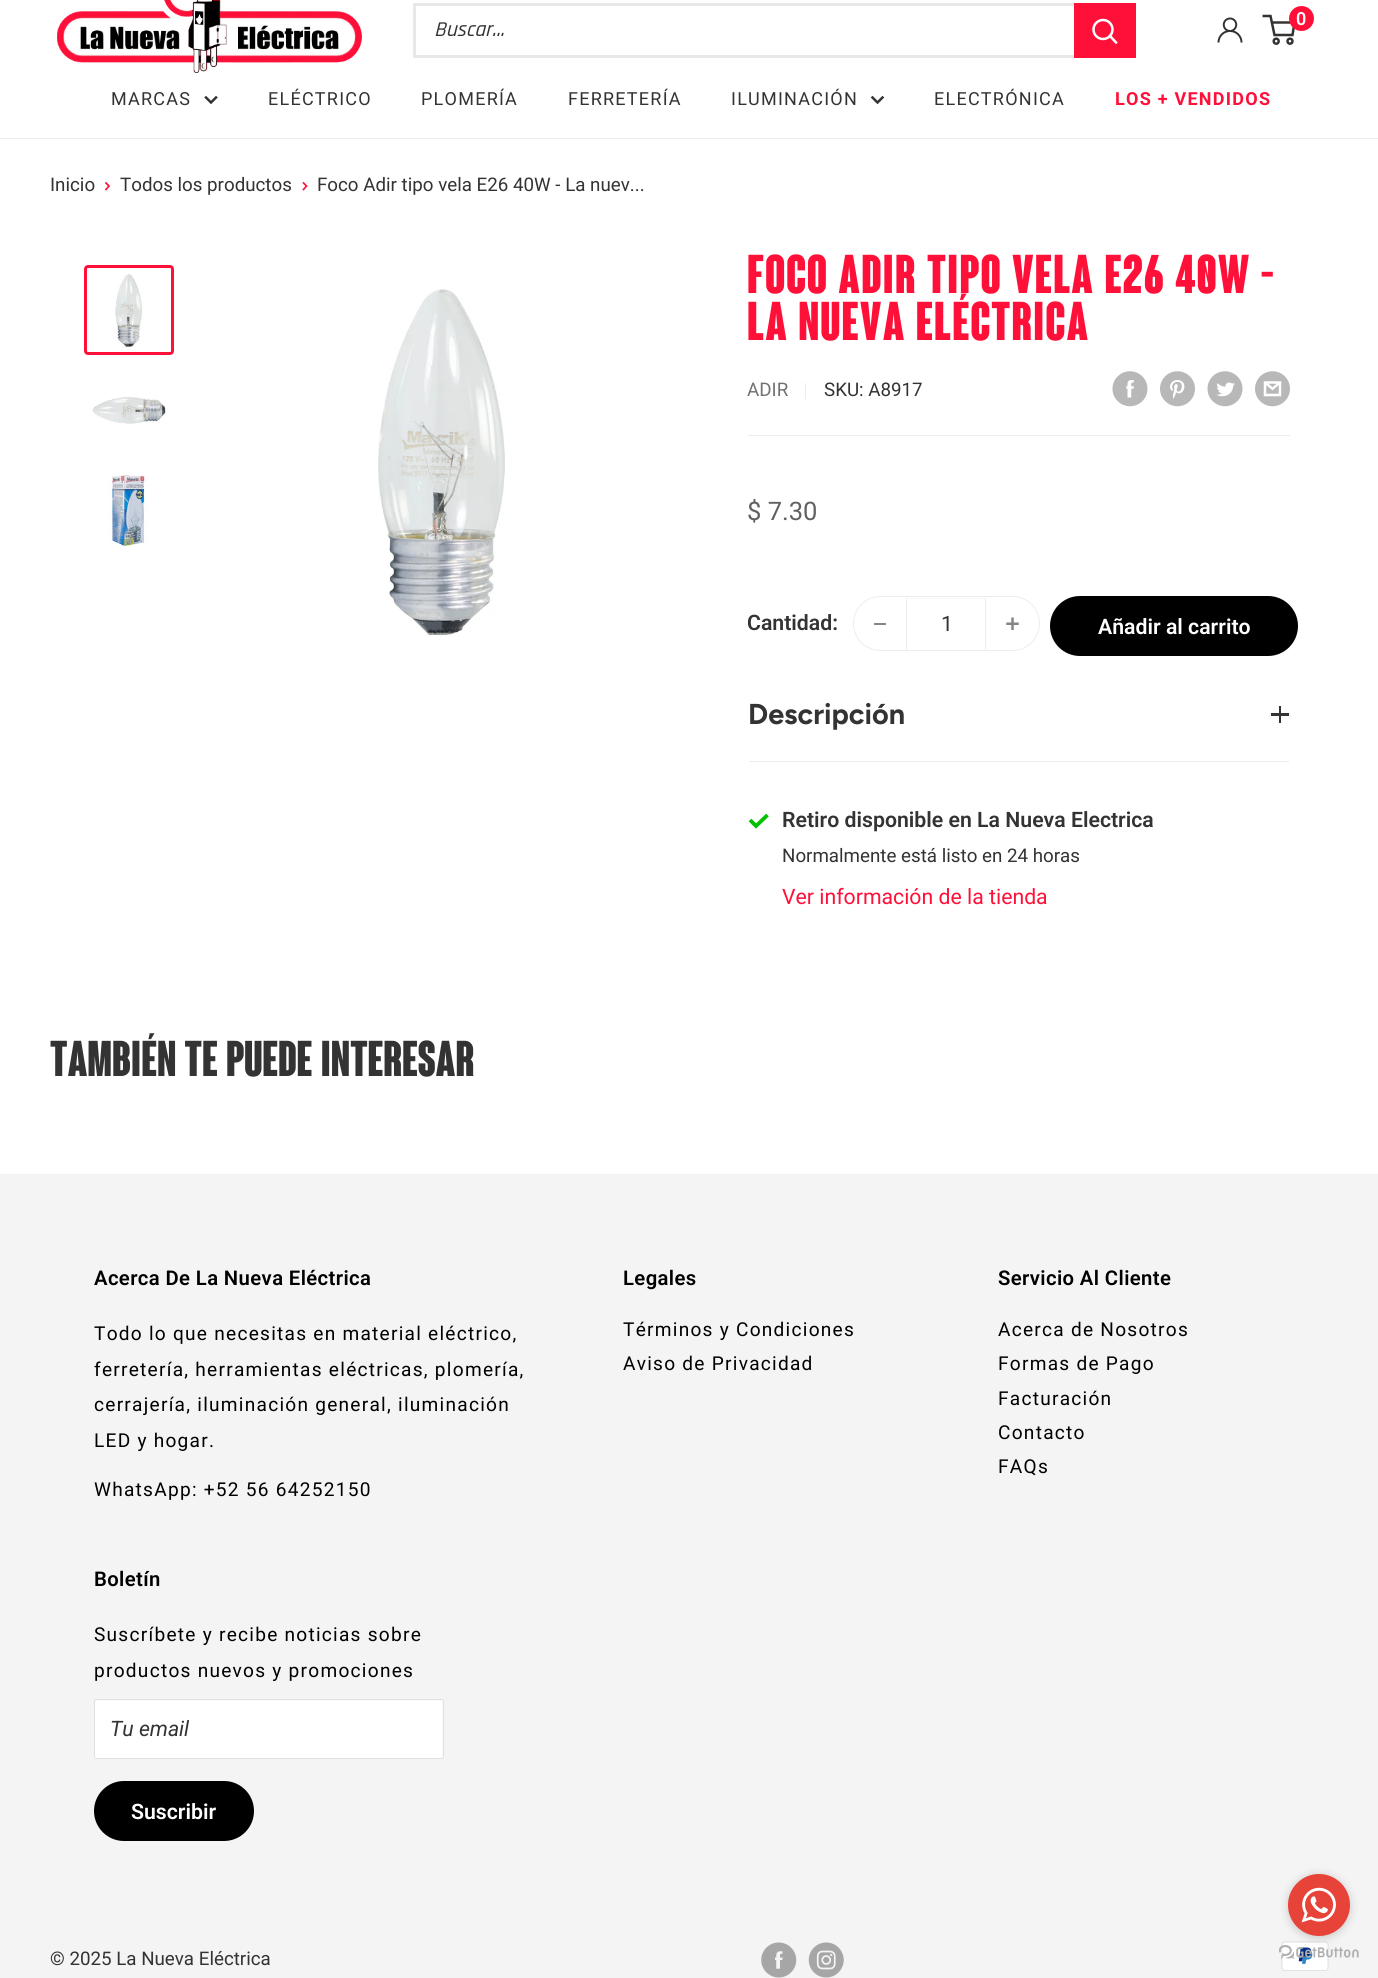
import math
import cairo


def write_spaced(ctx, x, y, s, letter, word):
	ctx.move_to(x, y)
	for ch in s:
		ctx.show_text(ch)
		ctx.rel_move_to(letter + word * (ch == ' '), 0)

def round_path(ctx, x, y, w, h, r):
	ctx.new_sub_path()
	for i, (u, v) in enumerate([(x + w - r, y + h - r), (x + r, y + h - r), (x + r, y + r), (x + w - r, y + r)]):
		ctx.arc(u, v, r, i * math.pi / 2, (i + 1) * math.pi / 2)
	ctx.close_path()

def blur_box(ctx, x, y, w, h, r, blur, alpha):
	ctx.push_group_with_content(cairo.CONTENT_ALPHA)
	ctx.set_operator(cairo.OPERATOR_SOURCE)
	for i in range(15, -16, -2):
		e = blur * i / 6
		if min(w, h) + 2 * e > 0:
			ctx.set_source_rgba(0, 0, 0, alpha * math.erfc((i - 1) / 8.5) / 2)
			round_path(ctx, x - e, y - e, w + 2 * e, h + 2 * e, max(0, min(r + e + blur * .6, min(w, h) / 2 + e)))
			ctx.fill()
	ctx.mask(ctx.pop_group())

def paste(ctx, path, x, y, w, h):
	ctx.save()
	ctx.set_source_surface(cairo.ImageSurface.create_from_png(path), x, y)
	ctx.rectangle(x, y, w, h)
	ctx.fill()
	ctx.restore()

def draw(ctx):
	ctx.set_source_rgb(1, 1, 1)
	ctx.paint()
	paste(ctx, 'media/1.png', 57, 0, 305, 73)
	paste(ctx, 'media/2.png', 1217, 17, 26, 26)
	ctx.arc(1276.2, 41.2, 2.5, 0, 2 * math.pi)
	ctx.set_source_rgb(0.2, 0.2, 0.2)
	ctx.set_line_width(2.5)
	ctx.stroke()
	ctx.arc(1290, 41.2, 2.5, 0, 2 * math.pi)
	ctx.stroke()
	ctx.new_path()
	ctx.move_to(1271.5, 22.5)
	ctx.line_to(1294.5, 22.5)
	ctx.line_to(1292.5, 35)
	ctx.line_to(1274.5, 35)
	ctx.line_to(1270.5, 16)
	ctx.line_to(1262.5, 16)
	ctx.stroke()
	ctx.set_source_rgb(1, 0.063, 0.224)
	ctx.arc(1301.5, 18.5, 12.5, 0, 2 * math.pi)
	ctx.fill()
	ctx.select_font_face('Roboto SemiBold')
	ctx.set_font_size(18)
	ctx.set_source_rgb(1, 1, 1)
	ctx.move_to(1296, 25)
	ctx.show_text('0')
	ctx.set_source_rgb(0.91, 0.91, 0.91)
	ctx.rectangle(413, 3, 661, 3)
	ctx.rectangle(413, 55, 661, 3)
	ctx.rectangle(413, 3, 3, 55)
	ctx.fill()
	ctx.select_font_face('Rajdhani Medium', cairo.FONT_SLANT_ITALIC)
	ctx.set_font_size(21.25)
	ctx.set_source_rgb(0.2, 0.2, 0.2)
	ctx.move_to(434, 36)
	ctx.show_text('Buscar...')
	ctx.set_source_rgb(1, 0.063, 0.224)
	ctx.rectangle(1074, 3, 62, 55)
	ctx.fill()
	ctx.new_path()
	ctx.move_to(1116, 42.5)
	ctx.line_to(1110, 36)
	ctx.set_source_rgb(1, 1, 1)
	ctx.set_line_cap(cairo.LINE_CAP_SQUARE)
	ctx.stroke()
	ctx.arc(1103, 29.5, 9.5, 0, 2 * math.pi)
	ctx.set_line_cap(cairo.LINE_CAP_BUTT)
	ctx.stroke()
	ctx.set_source_rgb(0.929, 0.929, 0.929)
	ctx.rectangle(0, 138, 1378, 1)
	ctx.fill()
	ctx.select_font_face('Roboto')
	ctx.set_font_size(18)
	ctx.set_source_rgb(0.2, 0.2, 0.2)
	write_spaced(ctx, 111, 105, 'MARCAS', 1.25, 0)
	ctx.new_path()
	ctx.move_to(216, 97.5)
	ctx.line_to(211, 102.5)
	ctx.line_to(206, 97.5)
	ctx.set_line_cap(cairo.LINE_CAP_SQUARE)
	ctx.stroke()
	for x, y, s in [
		(268, 105, 'ELÉCTRICO'),
		(421, 105, 'PLOMERÍA'),
		(568, 105, 'FERRETERÍA'),
		(731, 105, 'ILUMINACIÓN'),
	]:
		write_spaced(ctx, x, y, s, 1.25, 0)
	ctx.new_path()
	ctx.move_to(882.5, 97.5)
	ctx.line_to(877.5, 102.5)
	ctx.line_to(872.5, 97.5)
	ctx.stroke()
	write_spaced(ctx, 934, 105, 'ELECTRÓNICA', 1.25, 0)
	ctx.select_font_face('Roboto', cairo.FONT_SLANT_NORMAL, cairo.FONT_WEIGHT_BOLD)
	ctx.set_source_rgb(1, 0.063, 0.224)
	write_spaced(ctx, 1115, 105, 'LOS + VENDIDOS', 1.25, 0)
	ctx.select_font_face('Roboto')
	ctx.set_font_size(18.75)
	ctx.set_source_rgb(0.2, 0.2, 0.2)
	ctx.move_to(50, 191)
	ctx.show_text('Inicio')
	ctx.new_path()
	ctx.move_to(106, 183)
	ctx.line_to(109, 186)
	ctx.line_to(106, 189.5)
	ctx.set_source_rgb(1, 0.063, 0.224)
	ctx.set_line_width(1.7)
	ctx.stroke()
	ctx.set_source_rgb(0.2, 0.2, 0.2)
	ctx.move_to(120, 191)
	ctx.show_text('Todos los productos')
	ctx.new_path()
	ctx.move_to(303.5, 183)
	ctx.line_to(306.5, 186)
	ctx.line_to(303.5, 189.5)
	ctx.set_source_rgb(1, 0.063, 0.224)
	ctx.stroke()
	ctx.set_source_rgb(0.2, 0.2, 0.2)
	ctx.move_to(317, 191)
	ctx.show_text('Foco Adir tipo vela E26 40W - La nuev...')
	round_path(ctx, 85.5, 266.5, 87, 87, 2.5)
	ctx.set_source_rgb(1, 0.063, 0.224)
	ctx.set_line_width(3)
	ctx.set_line_cap(cairo.LINE_CAP_BUTT)
	ctx.stroke()
	paste(ctx, 'media/3.png', 115, 274, 28, 74)
	paste(ctx, 'media/4.png', 92, 396, 74, 28)
	paste(ctx, 'media/5.png', 108, 475, 40, 73)
	paste(ctx, 'media/6.png', 378, 289, 127, 347)
	ctx.select_font_face('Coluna', cairo.FONT_SLANT_NORMAL, cairo.FONT_WEIGHT_BOLD)
	ctx.set_font_size(53.1)
	write_spaced(ctx, 747, 293, 'Foco Adir tipo vela E26 40W -', 1.25, 0)
	write_spaced(ctx, 747, 340, 'La nueva eléctrica', 1.25, 0)
	ctx.select_font_face('Roboto')
	ctx.set_font_size(18.75)
	ctx.set_source_rgb(0.447, 0.447, 0.447)
	ctx.move_to(747, 396)
	ctx.show_text('ADIR')
	ctx.set_source_rgb(0.929, 0.929, 0.929)
	ctx.rectangle(805, 383, 1, 16)
	ctx.fill()
	ctx.set_source_rgb(0.2, 0.2, 0.2)
	ctx.move_to(824, 396)
	ctx.show_text('SKU: A8917')
	paste(ctx, 'media/7.png', 1112, 371, 36, 36)
	paste(ctx, 'media/8.png', 1160, 371, 35, 36)
	paste(ctx, 'media/9.png', 1207, 371, 36, 36)
	paste(ctx, 'media/10.png', 1255, 371, 35, 36)
	ctx.set_source_rgb(0.929, 0.929, 0.929)
	ctx.rectangle(748, 435, 542, 1)
	ctx.fill()
	ctx.set_font_size(25.5)
	ctx.set_source_rgb(0.38, 0.38, 0.38)
	ctx.move_to(747, 520)
	ctx.show_text('$ 7.30')
	ctx.select_font_face('Roboto SemiBold')
	ctx.set_font_size(21.25)
	ctx.set_source_rgb(0.2, 0.2, 0.2)
	ctx.move_to(747, 630)
	ctx.show_text('Cantidad:')
	round_path(ctx, 853.5, 596.5, 186, 54, 27)
	ctx.set_source_rgb(0.929, 0.929, 0.929)
	ctx.set_line_width(1)
	ctx.stroke()
	ctx.set_source_rgb(0.522, 0.522, 0.522)
	ctx.rectangle(874, 623, 12, 2)
	ctx.fill()
	ctx.set_source_rgb(0.973, 0.973, 0.973)
	ctx.rectangle(908, 598, 77, 1)
	ctx.fill()
	ctx.set_source_rgb(0.929, 0.929, 0.929)
	ctx.rectangle(985, 598, 1, 52)
	ctx.rectangle(906, 598, 1, 52)
	ctx.fill()
	ctx.select_font_face('Roboto')
	ctx.set_source_rgb(0.2, 0.2, 0.2)
	ctx.move_to(941, 631)
	ctx.show_text('1')
	paste(ctx, 'media/11.png', 1006, 617, 13, 13)
	ctx.set_source_rgb(0, 0, 0)
	round_path(ctx, 1050, 596, 248, 60, 30)
	ctx.fill()
	ctx.select_font_face('Roboto SemiBold')
	ctx.set_source_rgb(1, 1, 1)
	ctx.move_to(1098, 634)
	ctx.show_text('Añadir al carrito')
	ctx.set_source_rgb(0.929, 0.929, 0.929)
	ctx.rectangle(749, 761, 540, 1)
	ctx.fill()
	ctx.select_font_face('Figtree', cairo.FONT_SLANT_NORMAL, cairo.FONT_WEIGHT_BOLD)
	ctx.set_font_size(28.75)
	ctx.set_source_rgb(0.2, 0.2, 0.2)
	ctx.move_to(748, 724)
	ctx.show_text('Descripción')
	ctx.rectangle(1279, 706, 2, 17)
	ctx.fill()
	ctx.rectangle(1271, 713, 18, 3)
	ctx.fill()
	ctx.new_path()
	ctx.move_to(750, 820)
	ctx.line_to(756, 826)
	ctx.line_to(767.5, 815)
	ctx.set_source_rgb(0, 0.761, 0)
	ctx.set_line_width(3.8)
	ctx.stroke()
	ctx.select_font_face('Roboto SemiBold')
	ctx.set_font_size(21.25)
	ctx.set_source_rgb(0.2, 0.2, 0.2)
	ctx.move_to(782, 827)
	ctx.show_text('Retiro disponible en La Nueva Electrica')
	ctx.select_font_face('Roboto')
	ctx.set_font_size(18.75)
	ctx.move_to(782, 862)
	ctx.show_text('Normalmente está listo en 24 horas')
	ctx.set_font_size(21.25)
	ctx.set_source_rgb(1, 0.063, 0.224)
	ctx.move_to(782, 904)
	ctx.show_text('Ver información de la tienda')
	ctx.select_font_face('Coluna', cairo.FONT_SLANT_NORMAL, cairo.FONT_WEIGHT_BOLD)
	ctx.set_font_size(48.9)
	ctx.set_source_rgb(0.2, 0.2, 0.2)
	ctx.move_to(50, 1076)
	ctx.show_text('También te puede interesar')
	ctx.set_source_rgb(0.957, 0.957, 0.957)
	ctx.rectangle(0, 1174, 1378, 804)
	ctx.fill()
	ctx.select_font_face('Roboto SemiBold')
	ctx.set_font_size(20.25)
	ctx.set_source_rgb(0, 0, 0)
	write_spaced(ctx, 94, 1285, 'Acerca De La Nueva Eléctrica', 0.4, 0)
	ctx.select_font_face('Roboto')
	ctx.set_font_size(19.1)
	for x, y, s in [
		(94, 1340, 'Todo lo que necesitas en material eléctrico,'),
		(94, 1376, 'ferretería, herramientas eléctricas, plomería,'),
		(94, 1411, 'cerrajería, iluminación general, iluminación'),
		(94, 1447, 'LED y hogar.'),
		(94, 1496, 'WhatsApp: +52 56 64252150'),
	]:
		write_spaced(ctx, x, y, s, 1.25, 0)
	ctx.select_font_face('Roboto SemiBold')
	ctx.set_font_size(20.25)
	write_spaced(ctx, 623, 1285, 'Legales', 0.4, 0)
	ctx.select_font_face('Roboto')
	ctx.set_font_size(19.1)
	write_spaced(ctx, 623, 1336, 'Términos y Condiciones', 1.25, 0)
	write_spaced(ctx, 623, 1370, 'Aviso de Privacidad', 1.25, 0)
	ctx.select_font_face('Roboto SemiBold')
	ctx.set_font_size(20.25)
	write_spaced(ctx, 998, 1285, 'Servicio Al Cliente', 0.4, 0)
	ctx.select_font_face('Roboto')
	ctx.set_font_size(19.1)
	for x, y, s in [
		(998, 1336, 'Acerca de Nosotros'),
		(998, 1370, 'Formas de Pago'),
		(998, 1405, 'Facturación'),
		(998, 1439, 'Contacto'),
		(998, 1473, 'FAQs'),
	]:
		write_spaced(ctx, x, y, s, 1.25, 0)
	ctx.select_font_face('Roboto SemiBold')
	ctx.set_font_size(20.25)
	write_spaced(ctx, 94, 1586, 'Boletín', 0.4, 0)
	ctx.select_font_face('Roboto')
	ctx.set_font_size(19.1)
	write_spaced(ctx, 94, 1641, 'Suscríbete y recibe noticias sobre', 1.25, 0)
	write_spaced(ctx, 94, 1677, 'productos nuevos y promociones', 1.25, 0)
	ctx.set_source_rgb(1, 1, 1)
	round_path(ctx, 94, 1699, 350, 60, 2.5)
	ctx.fill()
	ctx.set_source_rgb(0.984, 0.984, 0.984)
	ctx.new_path()
	ctx.move_to(96, 1701)
	ctx.line_to(441, 1701)
	ctx.curve_to(442, 1701, 442, 1702, 442, 1702)
	ctx.line_to(442, 1758)
	ctx.line_to(443, 1757)
	ctx.line_to(443, 1701)
	ctx.line_to(442, 1700)
	ctx.line_to(95, 1700)
	ctx.line_to(95, 1702)
	ctx.close_path()
	ctx.fill()
	round_path(ctx, 94.5, 1699.5, 349, 59, 2)
	ctx.set_source_rgb(0.878, 0.878, 0.878)
	ctx.set_line_width(1)
	ctx.stroke()
	ctx.select_font_face('Roboto', cairo.FONT_SLANT_ITALIC)
	ctx.set_font_size(21.25)
	ctx.set_source_rgb(0.2, 0.2, 0.2)
	ctx.move_to(110, 1736)
	ctx.show_text('Tu email')
	ctx.set_source_rgb(0, 0, 0)
	round_path(ctx, 94, 1781, 160, 60, 30)
	ctx.fill()
	ctx.select_font_face('Roboto SemiBold')
	ctx.set_source_rgb(1, 1, 1)
	ctx.move_to(131, 1819)
	ctx.show_text('Suscribir')
	ctx.select_font_face('Roboto')
	ctx.set_font_size(18.75)
	ctx.set_source_rgb(0.2, 0.2, 0.2)
	ctx.move_to(50, 1965)
	ctx.show_text('© 2025 La Nueva Eléctrica')
	paste(ctx, 'media/12.png', 761, 1942, 36, 36)
	paste(ctx, 'media/13.png', 808, 1942, 36, 36)
	paste(ctx, 'media/14.png', 1281, 1941, 48, 30)
	paste(ctx, 'media/16.png', 1279, 1945, 80, 14)
	ctx.set_source_rgb(0.533, 0.533, 0.533)
	blur_box(ctx, 1288, 1875, 62, 63, 31, 4.5, 0.4)
	ctx.set_source_rgb(0.906, 0.263, 0.224)
	ctx.arc(1319, 1905, 31, 0, 2 * math.pi)
	ctx.fill()
	paste(ctx, 'media/15.png', 1301, 1887, 35, 36)


surface = cairo.ImageSurface(cairo.FORMAT_RGB24, 1378, 1978)
ctx = cairo.Context(surface)
options = cairo.FontOptions()
options.set_hint_metrics(cairo.HINT_METRICS_OFF)
options.set_hint_style(cairo.HINT_STYLE_NONE)
ctx.set_font_options(options)
ctx.set_miter_limit(4)
draw(ctx)
surface.write_to_png('image.png')
